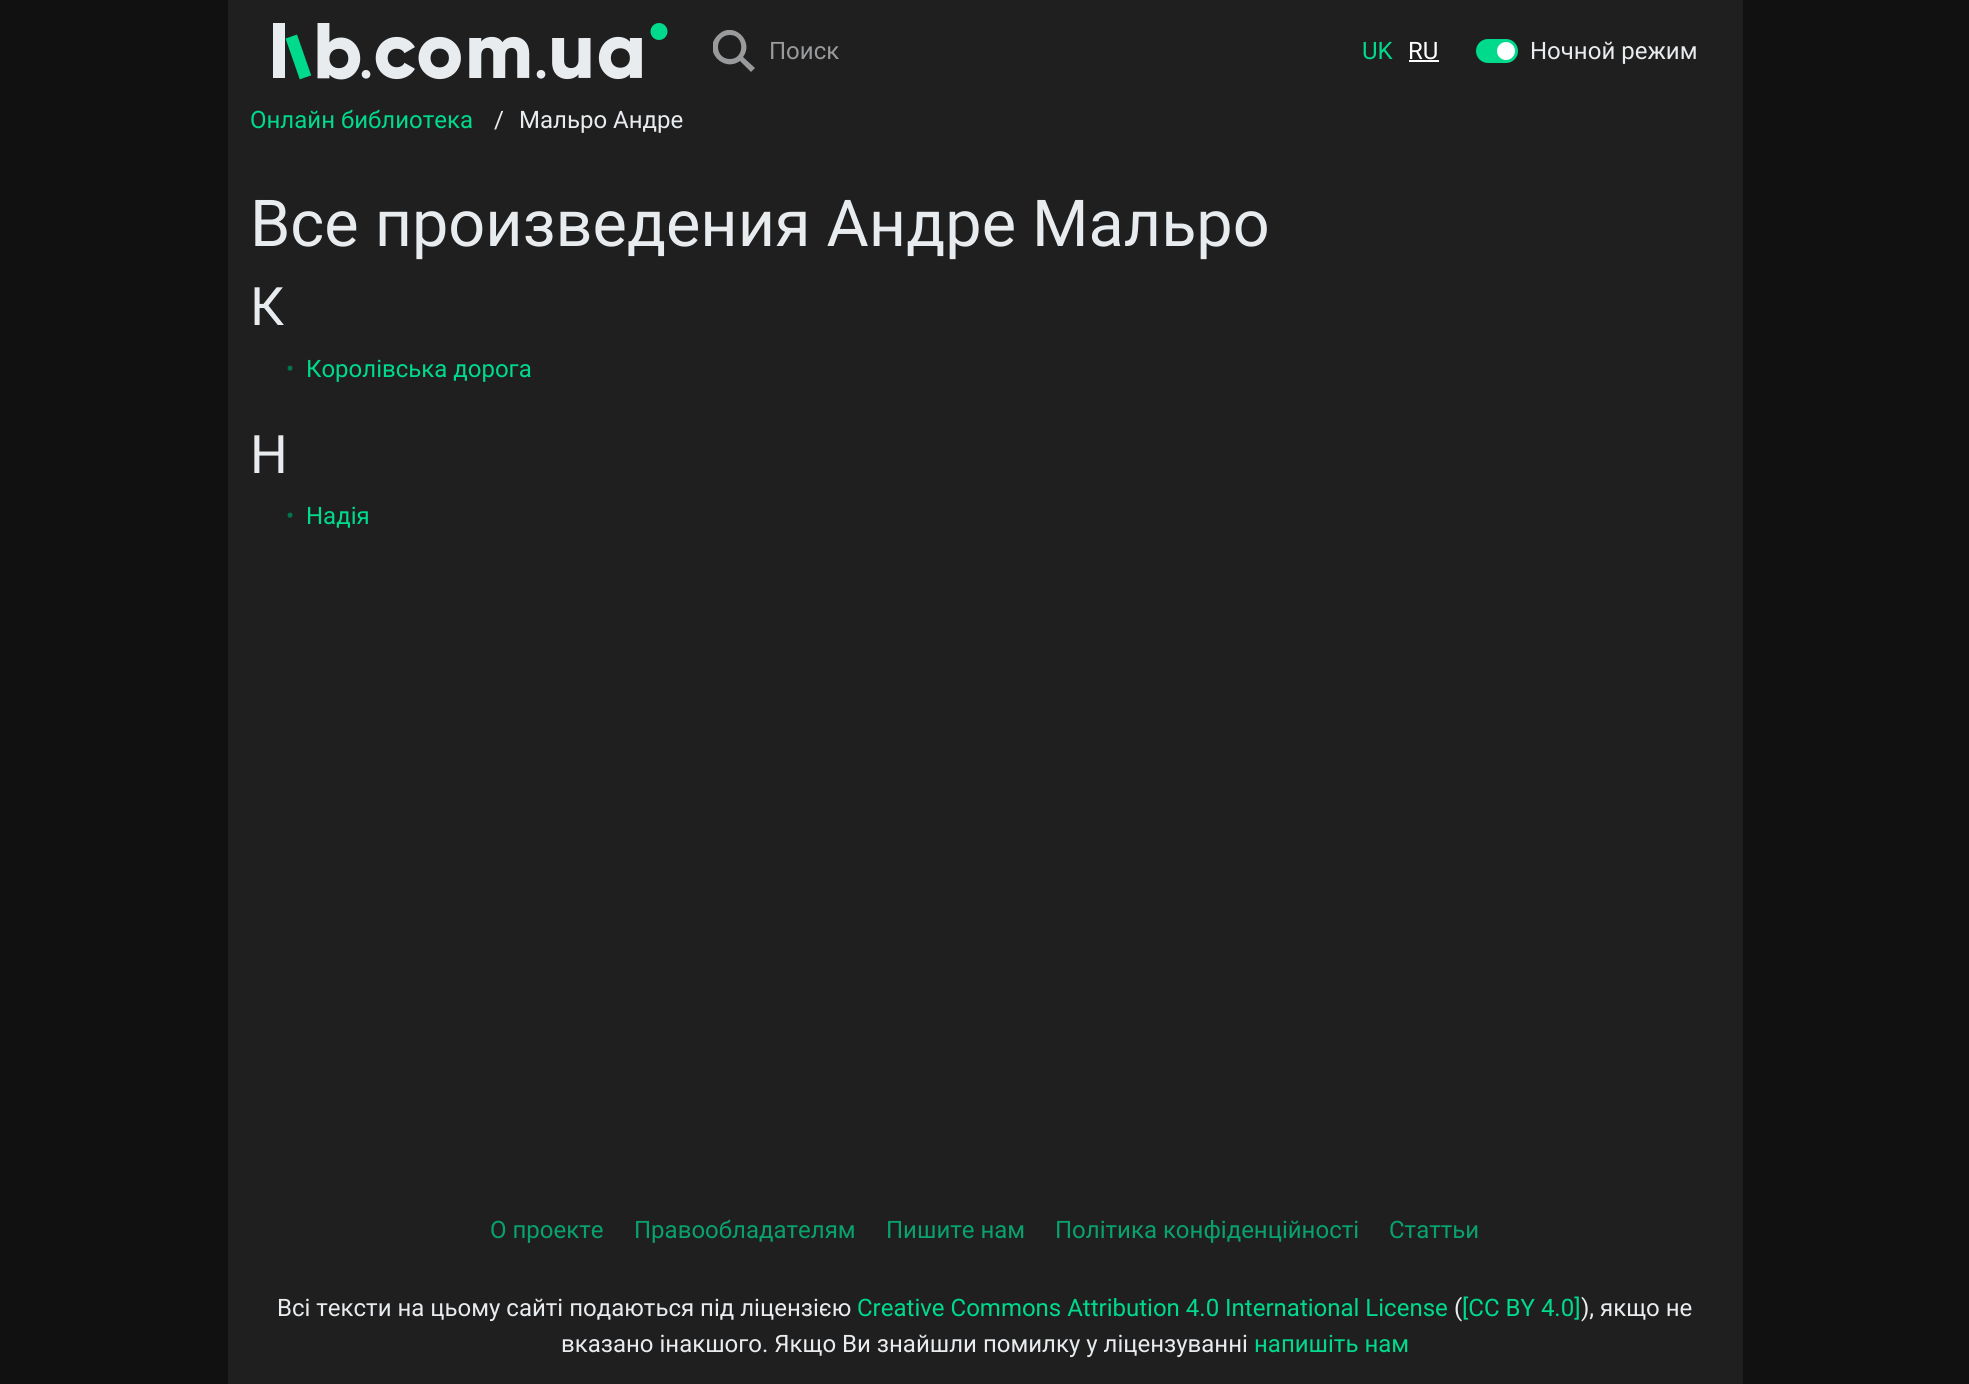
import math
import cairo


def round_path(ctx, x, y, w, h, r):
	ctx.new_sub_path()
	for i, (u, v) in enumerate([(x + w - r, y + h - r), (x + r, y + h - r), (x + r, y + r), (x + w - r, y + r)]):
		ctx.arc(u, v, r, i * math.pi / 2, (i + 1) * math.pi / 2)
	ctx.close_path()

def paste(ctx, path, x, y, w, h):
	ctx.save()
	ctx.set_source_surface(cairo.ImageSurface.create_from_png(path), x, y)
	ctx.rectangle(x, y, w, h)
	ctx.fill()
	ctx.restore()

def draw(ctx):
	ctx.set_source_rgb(0.067, 0.067, 0.067)
	ctx.paint()
	ctx.set_source_rgb(0.122, 0.122, 0.122)
	ctx.rectangle(228, 0, 1515, 1384)
	ctx.fill()
	paste(ctx, 'media/1.png', 273, 23, 395, 57)
	ctx.save()
	ctx.rectangle(713, 30, 42, 42)
	ctx.clip()
	ctx.set_source_rgb(0.596, 0.604, 0.612)
	ctx.new_path()
	ctx.move_to(743, 57)
	ctx.curve_to(755, 41, 733, 20, 718, 35)
	ctx.curve_to(702, 50, 723, 73, 740, 61)
	ctx.line_to(751, 72)
	ctx.line_to(755, 68)
	ctx.close_path()
	ctx.move_to(730, 59)
	ctx.curve_to(714, 59, 714, 35, 730, 35)
	ctx.curve_to(745, 35, 745, 59, 730, 59)
	ctx.close_path()
	ctx.fill()
	ctx.restore()
	ctx.select_font_face('Roboto')
	ctx.set_font_size(24)
	ctx.set_source_rgb(0.596, 0.604, 0.612)
	ctx.move_to(769, 59)
	ctx.show_text('Поиск')
	ctx.set_source_rgb(0, 0.855, 0.553)
	ctx.move_to(1362, 59)
	ctx.show_text('UK')
	ctx.set_source_rgb(1, 1, 1)
	ctx.move_to(1408, 59)
	ctx.show_text('RU')
	ctx.rectangle(1409, 60, 30, 2)
	ctx.fill()
	ctx.set_source_rgb(0, 0.855, 0.553)
	round_path(ctx, 1477, 40, 40, 22, 11)
	ctx.fill_preserve()
	ctx.stroke()
	ctx.set_source_rgb(0.914, 0.925, 0.937)
	ctx.move_to(1530, 59)
	ctx.show_text('Ночной режим')
	ctx.set_source_rgb(1, 1, 1)
	ctx.new_path()
	ctx.arc(1506, 51, 9, 0, 2 * math.pi)
	ctx.fill()
	ctx.set_source_rgb(0, 0.855, 0.553)
	ctx.move_to(250, 128)
	ctx.show_text('Онлайн библиотека')
	ctx.set_source_rgb(0.914, 0.925, 0.937)
	ctx.move_to(494, 128)
	ctx.show_text('/')
	ctx.move_to(519, 128)
	ctx.show_text('Мальро Андре')
	ctx.set_font_size(64.75)
	ctx.move_to(250, 246)
	ctx.show_text('Все произведения Андре Мальро')
	ctx.set_font_size(53)
	ctx.move_to(250, 325)
	ctx.show_text('К')
	ctx.set_font_size(24)
	ctx.set_source_rgb(0, 0.455, 0.294)
	ctx.move_to(286, 377)
	ctx.show_text('•')
	ctx.set_source_rgb(0, 0.855, 0.553)
	ctx.move_to(306, 377)
	ctx.show_text('Королівська дорога')
	ctx.set_font_size(53)
	ctx.set_source_rgb(0.914, 0.925, 0.937)
	ctx.move_to(250, 473)
	ctx.show_text('Н')
	ctx.set_font_size(24)
	ctx.set_source_rgb(0, 0.455, 0.294)
	ctx.move_to(286, 524)
	ctx.show_text('•')
	ctx.set_source_rgb(0, 0.855, 0.553)
	ctx.move_to(306, 524)
	ctx.show_text('Надія')
	ctx.set_source_rgb(0.035, 0.635, 0.424)
	for x, y, s in [
		(490, 1238, 'О проекте'),
		(634, 1238, 'Прaвooблaдателям'),
		(886, 1238, 'Пишите нам'),
		(1055, 1238, 'Політика конфіденційності'),
		(1389, 1238, 'Статтьи'),
	]:
		ctx.move_to(x, y)
		ctx.show_text(s)
	ctx.set_source_rgb(0.914, 0.925, 0.937)
	ctx.move_to(277, 1316)
	ctx.show_text('Всі тексти на цьому сайті подаються під ліцензією')
	ctx.set_source_rgb(0, 0.855, 0.553)
	ctx.move_to(857, 1316)
	ctx.show_text('Creative Commons Attribution 4.0 International License')
	ctx.set_source_rgb(0.914, 0.925, 0.937)
	ctx.move_to(1454, 1316)
	ctx.show_text('(')
	ctx.set_source_rgb(0, 0.855, 0.553)
	ctx.move_to(1462, 1316)
	ctx.show_text('[CC BY 4.0]')
	ctx.set_source_rgb(0.914, 0.925, 0.937)
	ctx.move_to(1581, 1316)
	ctx.show_text('), якщо не')
	ctx.move_to(561, 1352)
	ctx.show_text('вказано інакшого. Якщо Ви знайшли помилку у ліцензуванні')
	ctx.set_source_rgb(0, 0.855, 0.553)
	ctx.move_to(1254, 1352)
	ctx.show_text('напишіть нам')


surface = cairo.ImageSurface(cairo.FORMAT_RGB24, 1969, 1384)
ctx = cairo.Context(surface)
options = cairo.FontOptions()
options.set_hint_metrics(cairo.HINT_METRICS_OFF)
options.set_hint_style(cairo.HINT_STYLE_NONE)
ctx.set_font_options(options)
ctx.set_miter_limit(4)
draw(ctx)
surface.write_to_png('image.png')
